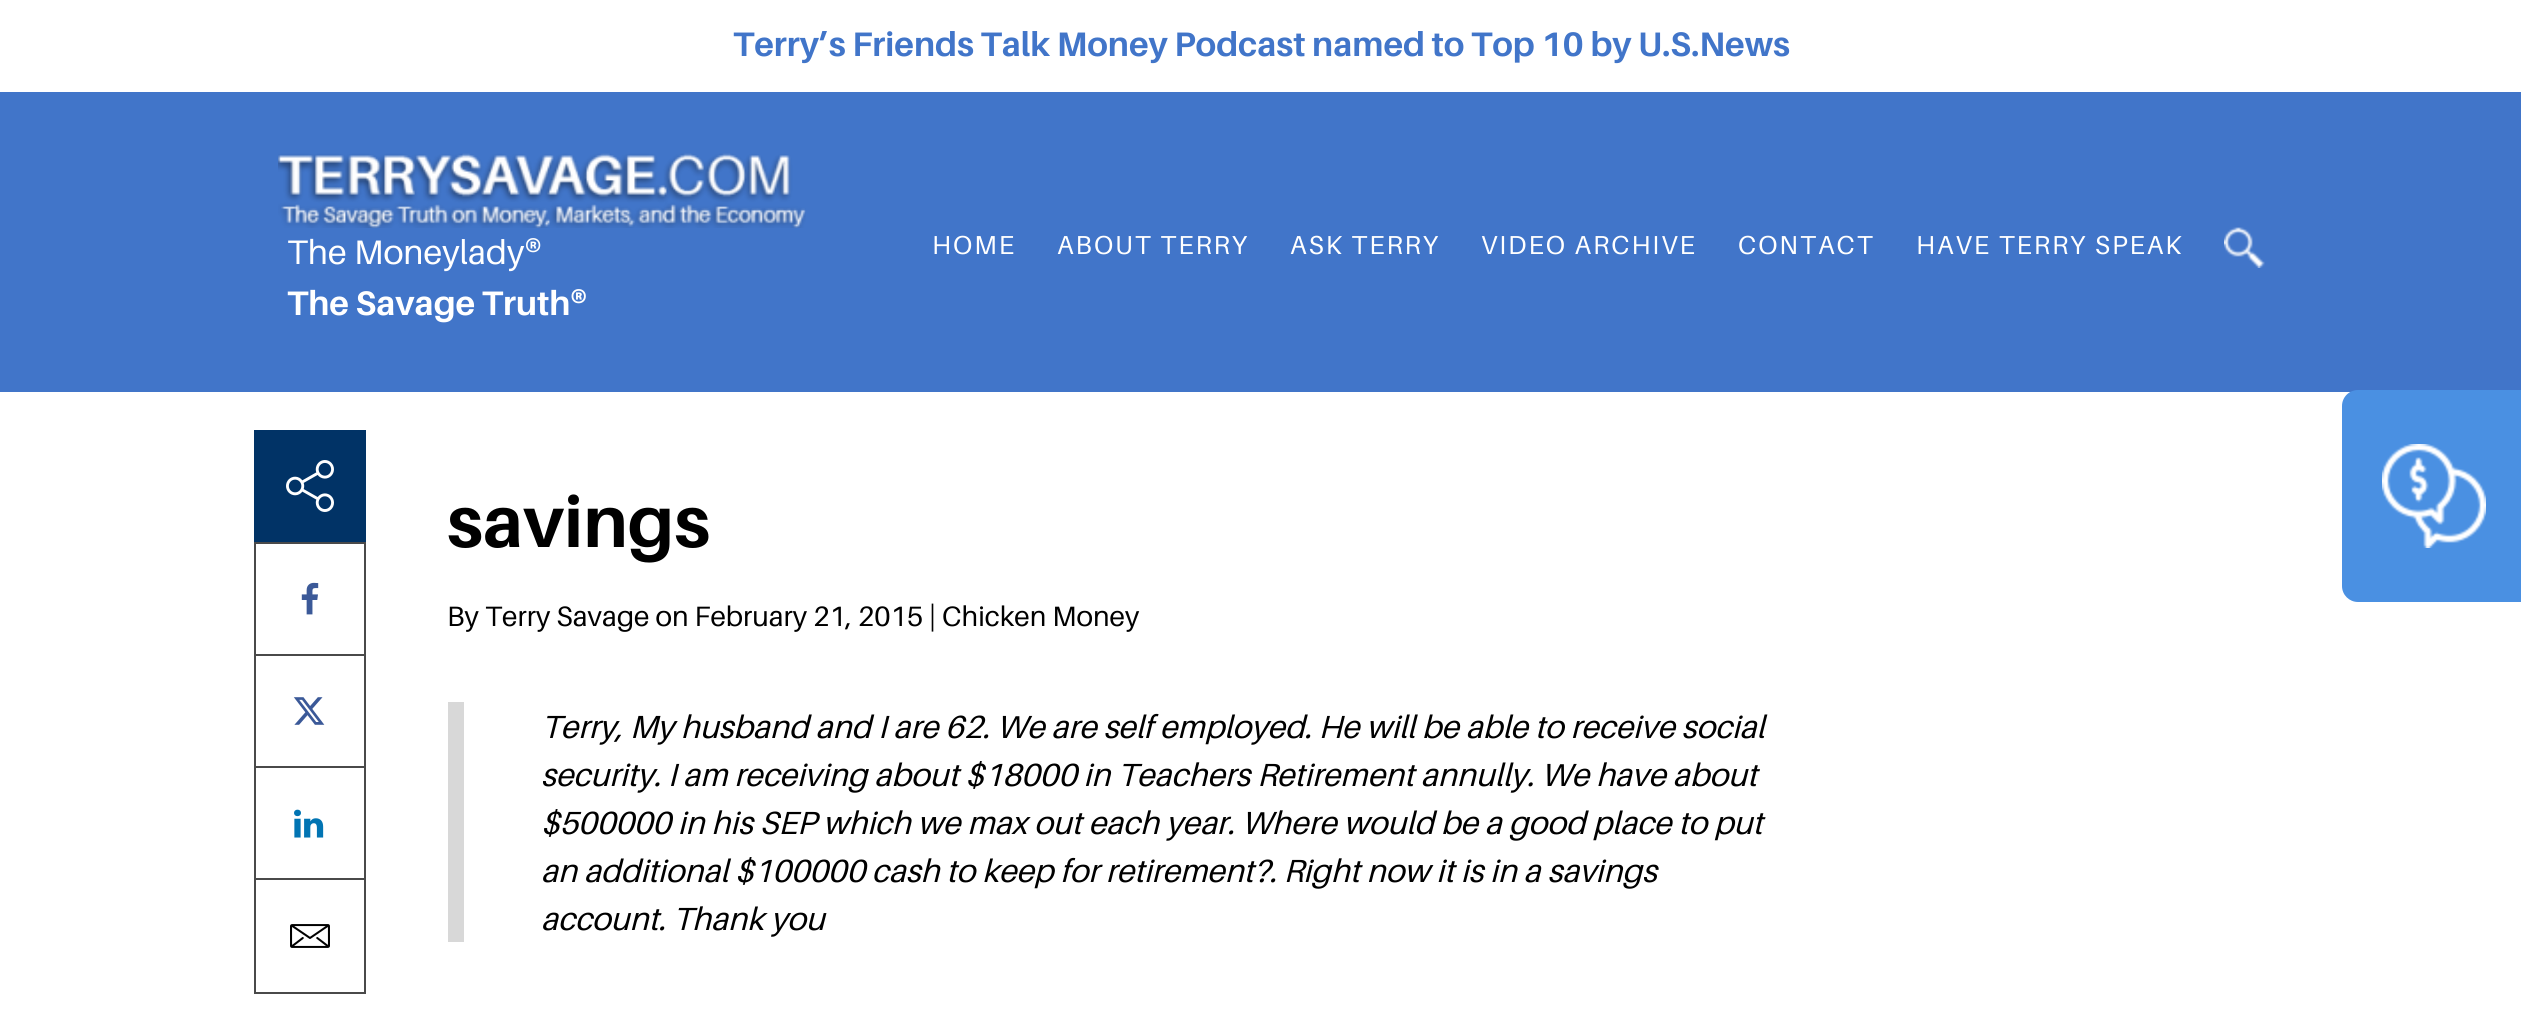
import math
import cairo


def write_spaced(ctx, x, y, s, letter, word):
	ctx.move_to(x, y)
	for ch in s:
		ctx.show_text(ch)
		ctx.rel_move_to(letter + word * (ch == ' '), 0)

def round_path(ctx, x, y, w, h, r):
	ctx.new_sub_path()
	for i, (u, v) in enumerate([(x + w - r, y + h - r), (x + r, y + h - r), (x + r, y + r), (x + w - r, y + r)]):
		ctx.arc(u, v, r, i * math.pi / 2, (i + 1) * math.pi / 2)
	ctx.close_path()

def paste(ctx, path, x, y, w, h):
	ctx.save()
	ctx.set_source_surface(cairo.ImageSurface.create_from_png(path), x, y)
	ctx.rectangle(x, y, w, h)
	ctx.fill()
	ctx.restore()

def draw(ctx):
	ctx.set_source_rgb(1, 1, 1)
	ctx.paint()
	ctx.select_font_face('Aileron', cairo.FONT_SLANT_NORMAL, cairo.FONT_WEIGHT_BOLD)
	ctx.set_font_size(34)
	ctx.set_source_rgb(0.255, 0.459, 0.788)
	ctx.move_to(733, 56)
	ctx.show_text('Terry’s Friends Talk Money Podcast named to Top 10 by U.S.News')
	ctx.rectangle(0, 92, 2521, 300)
	ctx.fill()
	paste(ctx, 'media/1.png', 278, 153, 528, 75)
	ctx.select_font_face('Aileron')
	ctx.set_source_rgb(1, 1, 1)
	ctx.move_to(287, 264)
	ctx.show_text('The Moneylady®')
	ctx.select_font_face('Aileron', cairo.FONT_SLANT_NORMAL, cairo.FONT_WEIGHT_BOLD)
	ctx.move_to(287, 315)
	ctx.show_text('The Savage Truth®')
	ctx.select_font_face('Aileron')
	ctx.set_font_size(26)
	for x, y, s in [
		(932, 254, 'HOME'),
		(1057, 254, 'ABOUT TERRY'),
		(1290, 254, 'ASK TERRY'),
		(1481, 254, 'VIDEO ARCHIVE'),
		(1738, 254, 'CONTACT'),
		(1916, 254, 'HAVE TERRY SPEAK'),
	]:
		write_spaced(ctx, x, y, s, 2, 0)
	paste(ctx, 'media/2.png', 2224, 227, 41, 41)
	ctx.set_source_rgb(0.004, 0.2, 0.4)
	ctx.rectangle(254, 430, 112, 112)
	ctx.fill()
	paste(ctx, 'media/3.png', 286, 460, 48, 52)
	ctx.rectangle(255, 543, 110, 450)
	ctx.set_source_rgb(0.29, 0.29, 0.29)
	ctx.stroke()
	ctx.rectangle(256, 654, 108, 2)
	ctx.fill()
	paste(ctx, 'media/4.png', 301, 582, 18, 33)
	ctx.rectangle(256, 766, 108, 2)
	ctx.fill()
	paste(ctx, 'media/5.png', 293, 697, 32, 28)
	ctx.rectangle(256, 878, 108, 2)
	ctx.fill()
	paste(ctx, 'media/6.png', 294, 809, 30, 29)
	paste(ctx, 'media/7.png', 290, 924, 40, 24)
	ctx.select_font_face('Aileron', cairo.FONT_SLANT_NORMAL, cairo.FONT_WEIGHT_BOLD)
	ctx.set_font_size(72)
	ctx.set_source_rgb(0, 0, 0)
	ctx.move_to(447, 547)
	ctx.show_text('savings')
	ctx.select_font_face('Aileron')
	ctx.set_font_size(28)
	ctx.move_to(447, 626)
	ctx.show_text('By Terry Savage on February 21, 2015 | Chicken Money')
	ctx.set_source_rgb(0.847, 0.847, 0.847)
	ctx.rectangle(448, 702, 16, 240)
	ctx.fill()
	ctx.select_font_face('Aileron', cairo.FONT_SLANT_ITALIC)
	ctx.set_font_size(32)
	ctx.set_source_rgb(0, 0, 0)
	for x, y, s in [
		(541, 738, 'Terry, My husband and I are 62. We are self employed. He will be able to receive social'),
		(541, 786, 'security. I am receiving about $18000 in Teachers Retirement annully. We have about'),
		(541, 834, '$500000 in his SEP which we max out each year. Where would be a good place to put'),
		(541, 882, 'an additional $100000 cash to keep for retirement?. Right now it is in a savings'),
		(541, 930, 'account. Thank you'),
	]:
		ctx.move_to(x, y)
		ctx.show_text(s)
	ctx.set_source_rgb(0.29, 0.565, 0.886)
	round_path(ctx, 2342, 390, 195, 212, 16)
	ctx.fill()
	paste(ctx, 'media/8.png', 2382, 444, 104, 104)


surface = cairo.ImageSurface(cairo.FORMAT_RGB24, 2521, 1013)
ctx = cairo.Context(surface)
options = cairo.FontOptions()
options.set_hint_metrics(cairo.HINT_METRICS_OFF)
options.set_hint_style(cairo.HINT_STYLE_NONE)
ctx.set_font_options(options)
ctx.set_miter_limit(4)
draw(ctx)
surface.write_to_png('image.png')
